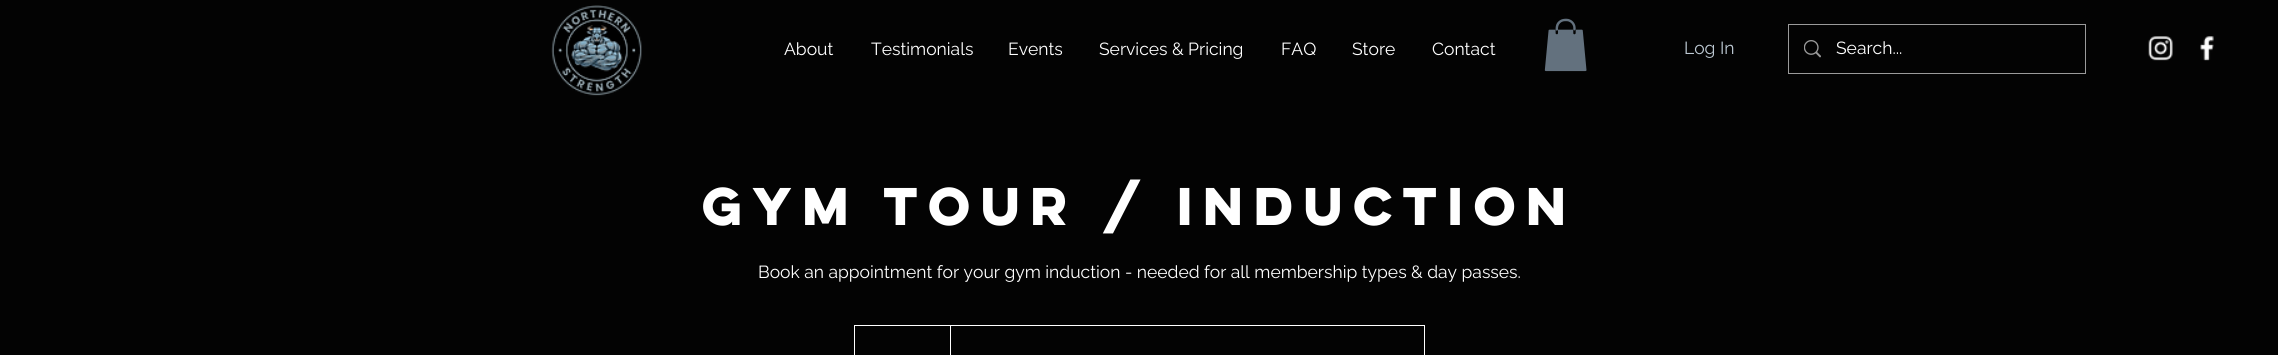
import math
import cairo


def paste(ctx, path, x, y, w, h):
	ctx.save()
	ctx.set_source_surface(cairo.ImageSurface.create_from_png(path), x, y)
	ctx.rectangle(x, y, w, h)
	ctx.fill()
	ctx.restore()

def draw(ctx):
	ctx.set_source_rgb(0.012, 0.012, 0.012)
	ctx.paint()
	paste(ctx, 'media/1.png', 551, 5, 91, 91)
	ctx.select_font_face('Raleway')
	ctx.set_font_size(17.5)
	ctx.set_source_rgb(1, 1, 1)
	for x, y, s in [
		(784, 55, 'About'),
		(871, 55, 'Testimonials'),
		(1008, 55, 'Events'),
		(1099, 55, 'Services & Pricing'),
		(1281, 55, 'FAQ'),
		(1352, 55, 'Store'),
		(1432, 55, 'Contact'),
	]:
		ctx.move_to(x, y)
		ctx.show_text(s)
	paste(ctx, 'media/2.png', 1544, 18, 43, 54)
	ctx.set_source_rgb(0.741, 0.788, 0.827)
	ctx.move_to(1684, 54)
	ctx.show_text('Log In')
	ctx.rectangle(1788.5, 24.5, 297, 49)
	ctx.set_source_rgb(0.604, 0.604, 0.604)
	ctx.set_line_width(1)
	ctx.stroke()
	paste(ctx, 'media/3.png', 1804, 40, 17, 18)
	ctx.set_source_rgb(1, 1, 1)
	ctx.move_to(1836, 54)
	ctx.show_text('Search...')
	paste(ctx, 'media/4.png', 2148, 36, 25, 25)
	paste(ctx, 'media/5.png', 2200, 36, 14, 25)
	ctx.select_font_face('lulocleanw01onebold', cairo.FONT_SLANT_NORMAL, cairo.FONT_WEIGHT_BOLD)
	ctx.set_font_size(47.5)
	ctx.move_to(702, 225)
	ctx.show_text('Gym Tour / Induction')
	ctx.select_font_face('Raleway')
	ctx.set_font_size(17.5)
	ctx.move_to(758, 278)
	ctx.show_text('Book an appointment for your gym induction - needed for all membership types & day passes.')
	ctx.rectangle(854.5, 325.5, 570, 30)
	ctx.stroke()
	ctx.rectangle(950, 326, 1, 29)
	ctx.fill()


surface = cairo.ImageSurface(cairo.FORMAT_RGB24, 2278, 355)
ctx = cairo.Context(surface)
options = cairo.FontOptions()
options.set_hint_metrics(cairo.HINT_METRICS_OFF)
options.set_hint_style(cairo.HINT_STYLE_NONE)
ctx.set_font_options(options)
ctx.set_miter_limit(4)
draw(ctx)
surface.write_to_png('image.png')
